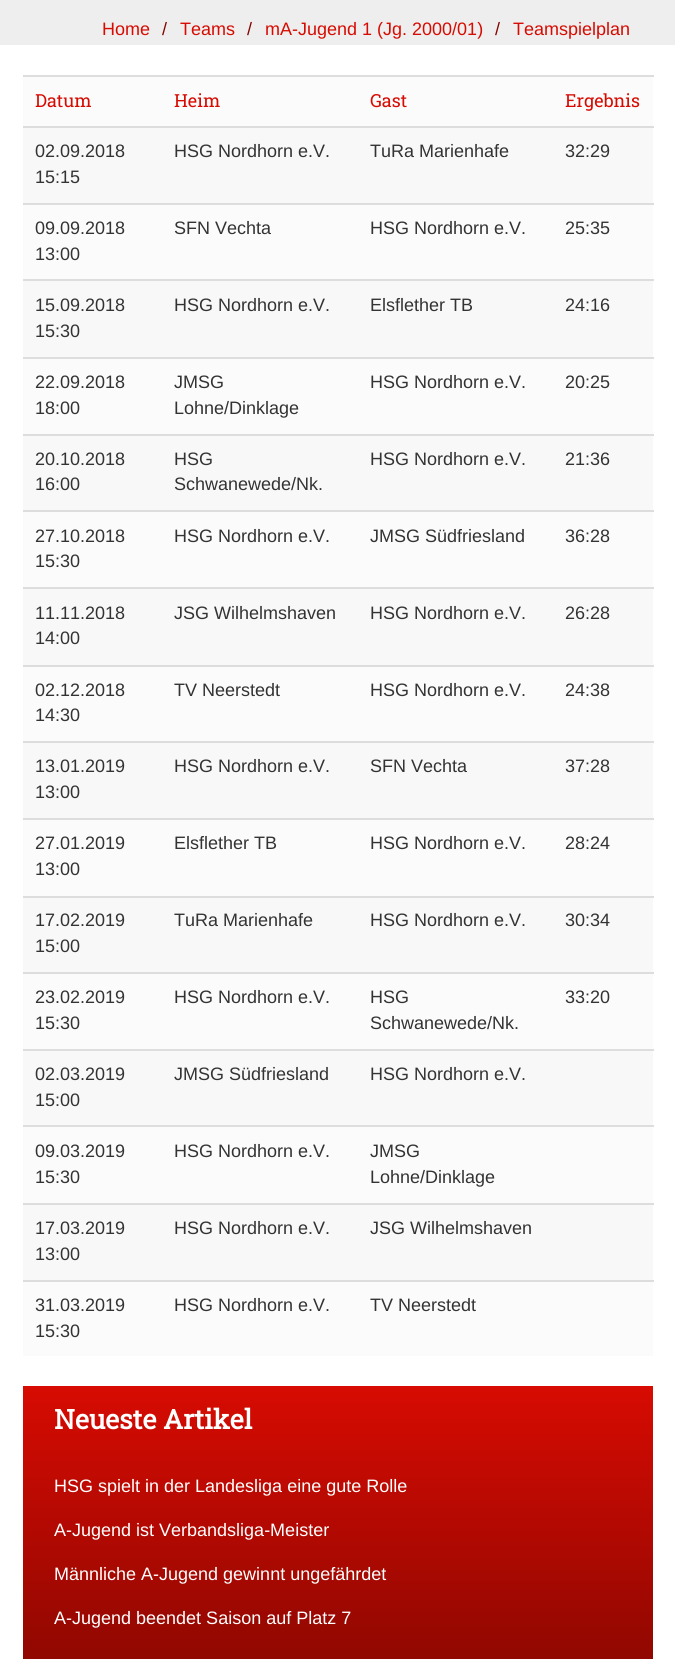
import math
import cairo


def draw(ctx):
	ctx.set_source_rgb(0.933, 0.933, 0.933)
	ctx.paint()
	ctx.select_font_face('Liberation Sans')
	ctx.set_font_size(18)
	ctx.set_source_rgb(0.843, 0.043, 0.008)
	ctx.move_to(102, 35)
	ctx.show_text('Home')
	ctx.set_source_rgb(0.514, 0.027, 0.004)
	ctx.move_to(162, 35)
	ctx.show_text('/')
	ctx.set_source_rgb(0.843, 0.043, 0.008)
	ctx.move_to(180, 35)
	ctx.show_text('Teams')
	ctx.set_source_rgb(0.514, 0.027, 0.004)
	ctx.move_to(247, 35)
	ctx.show_text('/')
	ctx.set_source_rgb(0.843, 0.043, 0.008)
	ctx.move_to(265, 35)
	ctx.show_text('mA-Jugend 1 (Jg. 2000/01)')
	ctx.set_source_rgb(0.514, 0.027, 0.004)
	ctx.move_to(495, 35)
	ctx.show_text('/')
	ctx.set_source_rgb(0.843, 0.043, 0.008)
	ctx.move_to(513, 35)
	ctx.show_text('Teamspielplan')
	ctx.set_source_rgb(1, 1, 1)
	ctx.rectangle(0, 45, 675, 1614)
	ctx.fill()
	ctx.set_source_rgb(0.984, 0.984, 0.984)
	ctx.rectangle(23, 77, 630, 49)
	ctx.fill()
	ctx.select_font_face('Roboto Slab')
	ctx.set_source_rgb(0.843, 0.043, 0.008)
	for x, y, s in [
		(35, 107, 'Datum'),
		(174, 107, 'Heim'),
		(370, 107, 'Gast'),
	]:
		ctx.move_to(x, y)
		ctx.show_text(s)
	ctx.set_source_rgb(0.867, 0.867, 0.867)
	ctx.rectangle(23, 75, 631, 2)
	ctx.fill()
	ctx.set_source_rgb(0.843, 0.043, 0.008)
	ctx.move_to(565, 107)
	ctx.show_text('Ergebnis')
	ctx.set_source_rgb(0.969, 0.969, 0.969)
	ctx.rectangle(23, 128, 630, 75)
	ctx.fill()
	ctx.select_font_face('Liberation Sans')
	ctx.set_source_rgb(0.2, 0.2, 0.2)
	for x, y, s in [
		(35, 157, '02.09.2018'),
		(35, 183, '15:15'),
		(174, 157, 'HSG Nordhorn e.V.'),
		(370, 157, 'TuRa Marienhafe'),
	]:
		ctx.move_to(x, y)
		ctx.show_text(s)
	ctx.set_source_rgb(0.867, 0.867, 0.867)
	ctx.rectangle(23, 126, 631, 2)
	ctx.fill()
	ctx.set_source_rgb(0.2, 0.2, 0.2)
	ctx.move_to(565, 157)
	ctx.show_text('32:29')
	ctx.set_source_rgb(0.984, 0.984, 0.984)
	ctx.rectangle(23, 205, 630, 74)
	ctx.fill()
	ctx.set_source_rgb(0.2, 0.2, 0.2)
	for x, y, s in [
		(35, 234, '09.09.2018'),
		(35, 260, '13:00'),
		(174, 234, 'SFN Vechta'),
		(370, 234, 'HSG Nordhorn e.V.'),
	]:
		ctx.move_to(x, y)
		ctx.show_text(s)
	ctx.set_source_rgb(0.867, 0.867, 0.867)
	ctx.rectangle(23, 203, 631, 2)
	ctx.fill()
	ctx.set_source_rgb(0.2, 0.2, 0.2)
	ctx.move_to(565, 234)
	ctx.show_text('25:35')
	ctx.set_source_rgb(0.969, 0.969, 0.969)
	ctx.rectangle(23, 281, 630, 76)
	ctx.fill()
	ctx.set_source_rgb(0.2, 0.2, 0.2)
	for x, y, s in [
		(35, 311, '15.09.2018'),
		(35, 337, '15:30'),
		(174, 311, 'HSG Nordhorn e.V.'),
		(370, 311, 'Elsflether TB'),
	]:
		ctx.move_to(x, y)
		ctx.show_text(s)
	ctx.set_source_rgb(0.867, 0.867, 0.867)
	ctx.rectangle(23, 279, 631, 2)
	ctx.fill()
	ctx.set_source_rgb(0.2, 0.2, 0.2)
	ctx.move_to(565, 311)
	ctx.show_text('24:16')
	ctx.set_source_rgb(0.984, 0.984, 0.984)
	ctx.rectangle(23, 359, 630, 75)
	ctx.fill()
	ctx.set_source_rgb(0.2, 0.2, 0.2)
	for x, y, s in [
		(35, 388, '22.09.2018'),
		(35, 414, '18:00'),
		(174, 388, 'JMSG'),
		(174, 414, 'Lohne/Dinklage'),
		(370, 388, 'HSG Nordhorn e.V.'),
	]:
		ctx.move_to(x, y)
		ctx.show_text(s)
	ctx.set_source_rgb(0.867, 0.867, 0.867)
	ctx.rectangle(23, 357, 631, 2)
	ctx.fill()
	ctx.set_source_rgb(0.2, 0.2, 0.2)
	ctx.move_to(565, 388)
	ctx.show_text('20:25')
	ctx.set_source_rgb(0.969, 0.969, 0.969)
	ctx.rectangle(23, 436, 630, 74)
	ctx.fill()
	ctx.set_source_rgb(0.2, 0.2, 0.2)
	for x, y, s in [
		(35, 465, '20.10.2018'),
		(35, 490, '16:00'),
		(174, 465, 'HSG'),
		(174, 490, 'Schwanewede/Nk.'),
		(370, 465, 'HSG Nordhorn e.V.'),
	]:
		ctx.move_to(x, y)
		ctx.show_text(s)
	ctx.set_source_rgb(0.867, 0.867, 0.867)
	ctx.rectangle(23, 434, 631, 2)
	ctx.fill()
	ctx.set_source_rgb(0.2, 0.2, 0.2)
	ctx.move_to(565, 465)
	ctx.show_text('21:36')
	ctx.set_source_rgb(0.984, 0.984, 0.984)
	ctx.rectangle(23, 512, 630, 75)
	ctx.fill()
	ctx.set_source_rgb(0.2, 0.2, 0.2)
	for x, y, s in [
		(35, 542, '27.10.2018'),
		(35, 567, '15:30'),
		(174, 542, 'HSG Nordhorn e.V.'),
		(370, 542, 'JMSG Südfriesland'),
	]:
		ctx.move_to(x, y)
		ctx.show_text(s)
	ctx.set_source_rgb(0.867, 0.867, 0.867)
	ctx.rectangle(23, 510, 631, 2)
	ctx.fill()
	ctx.set_source_rgb(0.2, 0.2, 0.2)
	ctx.move_to(565, 542)
	ctx.show_text('36:28')
	ctx.set_source_rgb(0.969, 0.969, 0.969)
	ctx.rectangle(23, 589, 630, 76)
	ctx.fill()
	ctx.set_source_rgb(0.2, 0.2, 0.2)
	for x, y, s in [
		(35, 619, '11.11.2018'),
		(35, 644, '14:00'),
		(174, 619, 'JSG Wilhelmshaven'),
		(370, 619, 'HSG Nordhorn e.V.'),
	]:
		ctx.move_to(x, y)
		ctx.show_text(s)
	ctx.set_source_rgb(0.867, 0.867, 0.867)
	ctx.rectangle(23, 587, 631, 2)
	ctx.fill()
	ctx.set_source_rgb(0.2, 0.2, 0.2)
	ctx.move_to(565, 619)
	ctx.show_text('26:28')
	ctx.set_source_rgb(0.984, 0.984, 0.984)
	ctx.rectangle(23, 667, 630, 74)
	ctx.fill()
	ctx.set_source_rgb(0.2, 0.2, 0.2)
	for x, y, s in [
		(35, 696, '02.12.2018'),
		(35, 721, '14:30'),
		(174, 696, 'TV Neerstedt'),
		(370, 696, 'HSG Nordhorn e.V.'),
	]:
		ctx.move_to(x, y)
		ctx.show_text(s)
	ctx.set_source_rgb(0.867, 0.867, 0.867)
	ctx.rectangle(23, 665, 631, 2)
	ctx.fill()
	ctx.set_source_rgb(0.2, 0.2, 0.2)
	ctx.move_to(565, 696)
	ctx.show_text('24:38')
	ctx.set_source_rgb(0.969, 0.969, 0.969)
	ctx.rectangle(23, 743, 630, 75)
	ctx.fill()
	ctx.set_source_rgb(0.2, 0.2, 0.2)
	for x, y, s in [
		(35, 772, '13.01.2019'),
		(35, 798, '13:00'),
		(174, 772, 'HSG Nordhorn e.V.'),
		(370, 772, 'SFN Vechta'),
	]:
		ctx.move_to(x, y)
		ctx.show_text(s)
	ctx.set_source_rgb(0.867, 0.867, 0.867)
	ctx.rectangle(23, 741, 631, 2)
	ctx.fill()
	ctx.set_source_rgb(0.2, 0.2, 0.2)
	ctx.move_to(565, 772)
	ctx.show_text('37:28')
	ctx.set_source_rgb(0.984, 0.984, 0.984)
	ctx.rectangle(23, 820, 630, 76)
	ctx.fill()
	ctx.set_source_rgb(0.2, 0.2, 0.2)
	for x, y, s in [
		(35, 849, '27.01.2019'),
		(35, 875, '13:00'),
		(174, 849, 'Elsflether TB'),
		(370, 849, 'HSG Nordhorn e.V.'),
	]:
		ctx.move_to(x, y)
		ctx.show_text(s)
	ctx.set_source_rgb(0.867, 0.867, 0.867)
	ctx.rectangle(23, 818, 631, 2)
	ctx.fill()
	ctx.set_source_rgb(0.2, 0.2, 0.2)
	ctx.move_to(565, 849)
	ctx.show_text('28:24')
	ctx.set_source_rgb(0.969, 0.969, 0.969)
	ctx.rectangle(23, 898, 630, 74)
	ctx.fill()
	ctx.set_source_rgb(0.2, 0.2, 0.2)
	for x, y, s in [
		(35, 926, '17.02.2019'),
		(35, 952, '15:00'),
		(174, 926, 'TuRa Marienhafe'),
		(370, 926, 'HSG Nordhorn e.V.'),
	]:
		ctx.move_to(x, y)
		ctx.show_text(s)
	ctx.set_source_rgb(0.867, 0.867, 0.867)
	ctx.rectangle(23, 896, 631, 2)
	ctx.fill()
	ctx.set_source_rgb(0.2, 0.2, 0.2)
	ctx.move_to(565, 926)
	ctx.show_text('30:34')
	ctx.set_source_rgb(0.984, 0.984, 0.984)
	ctx.rectangle(23, 974, 630, 75)
	ctx.fill()
	ctx.set_source_rgb(0.2, 0.2, 0.2)
	for x, y, s in [
		(35, 1003, '23.02.2019'),
		(35, 1029, '15:30'),
		(174, 1003, 'HSG Nordhorn e.V.'),
		(370, 1003, 'HSG'),
		(370, 1029, 'Schwanewede/Nk.'),
	]:
		ctx.move_to(x, y)
		ctx.show_text(s)
	ctx.set_source_rgb(0.867, 0.867, 0.867)
	ctx.rectangle(23, 972, 631, 2)
	ctx.fill()
	ctx.set_source_rgb(0.2, 0.2, 0.2)
	ctx.move_to(565, 1003)
	ctx.show_text('33:20')
	ctx.set_source_rgb(0.867, 0.867, 0.867)
	ctx.rectangle(23, 1049, 631, 2)
	ctx.fill()
	ctx.set_source_rgb(0.969, 0.969, 0.969)
	ctx.rectangle(23, 1051, 630, 74)
	ctx.fill()
	ctx.set_source_rgb(0.2, 0.2, 0.2)
	for x, y, s in [
		(35, 1080, '02.03.2019'),
		(35, 1106, '15:00'),
		(174, 1080, 'JMSG Südfriesland'),
		(370, 1080, 'HSG Nordhorn e.V.'),
	]:
		ctx.move_to(x, y)
		ctx.show_text(s)
	ctx.set_source_rgb(0.867, 0.867, 0.867)
	ctx.rectangle(23, 1125, 631, 2)
	ctx.fill()
	ctx.set_source_rgb(0.984, 0.984, 0.984)
	ctx.rectangle(23, 1127, 630, 76)
	ctx.fill()
	ctx.set_source_rgb(0.2, 0.2, 0.2)
	for x, y, s in [
		(35, 1157, '09.03.2019'),
		(35, 1183, '15:30'),
		(174, 1157, 'HSG Nordhorn e.V.'),
		(370, 1157, 'JMSG'),
		(370, 1183, 'Lohne/Dinklage'),
	]:
		ctx.move_to(x, y)
		ctx.show_text(s)
	ctx.set_source_rgb(0.867, 0.867, 0.867)
	ctx.rectangle(23, 1203, 631, 2)
	ctx.fill()
	ctx.set_source_rgb(0.969, 0.969, 0.969)
	ctx.rectangle(23, 1205, 630, 75)
	ctx.fill()
	ctx.set_source_rgb(0.2, 0.2, 0.2)
	for x, y, s in [
		(35, 1234, '17.03.2019'),
		(35, 1260, '13:00'),
		(174, 1234, 'HSG Nordhorn e.V.'),
		(370, 1234, 'JSG Wilhelmshaven'),
	]:
		ctx.move_to(x, y)
		ctx.show_text(s)
	ctx.set_source_rgb(0.867, 0.867, 0.867)
	ctx.rectangle(23, 1280, 631, 2)
	ctx.fill()
	ctx.set_source_rgb(0.984, 0.984, 0.984)
	ctx.rectangle(23, 1282, 630, 74)
	ctx.fill()
	ctx.set_source_rgb(0.2, 0.2, 0.2)
	for x, y, s in [
		(35, 1311, '31.03.2019'),
		(35, 1337, '15:30'),
		(174, 1311, 'HSG Nordhorn e.V.'),
		(370, 1311, 'TV Neerstedt'),
	]:
		ctx.move_to(x, y)
		ctx.show_text(s)
	gradient = cairo.LinearGradient(338, 1386, 338, 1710)
	gradient.add_color_stop_rgba(0, 0.843, 0.043, 0.008, 1)
	gradient.add_color_stop_rgba(1, 0.514, 0.027, 0.004, 1)
	ctx.set_source(gradient)
	ctx.rectangle(23, 1386, 630, 273)
	ctx.fill()
	ctx.select_font_face('Roboto Slab', cairo.FONT_SLANT_NORMAL, cairo.FONT_WEIGHT_BOLD)
	ctx.set_font_size(27)
	ctx.set_source_rgb(1, 1, 1)
	ctx.move_to(54, 1429)
	ctx.show_text('Neueste Artikel')
	ctx.select_font_face('Liberation Sans')
	ctx.set_font_size(18)
	for x, y, s in [
		(54, 1492, 'HSG spielt in der Landesliga eine gute Rolle'),
		(54, 1536, 'A-Jugend ist Verbandsliga-Meister'),
		(54, 1580, 'Männliche A-Jugend gewinnt ungefährdet'),
		(54, 1624, 'A-Jugend beendet Saison auf Platz 7'),
	]:
		ctx.move_to(x, y)
		ctx.show_text(s)


surface = cairo.ImageSurface(cairo.FORMAT_RGB24, 675, 1659)
ctx = cairo.Context(surface)
options = cairo.FontOptions()
options.set_hint_metrics(cairo.HINT_METRICS_OFF)
options.set_hint_style(cairo.HINT_STYLE_NONE)
ctx.set_font_options(options)
ctx.set_miter_limit(4)
draw(ctx)
surface.write_to_png('image.png')
